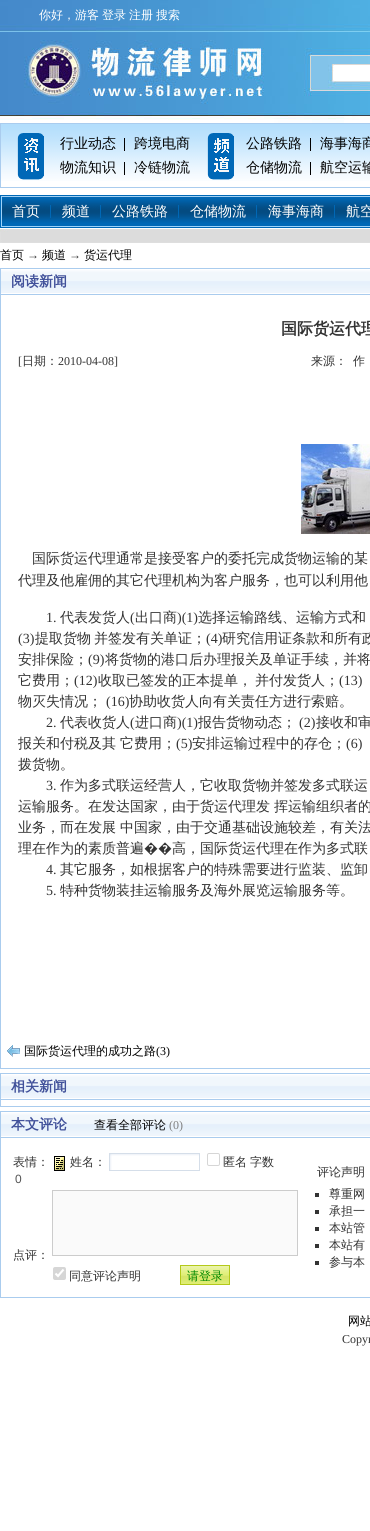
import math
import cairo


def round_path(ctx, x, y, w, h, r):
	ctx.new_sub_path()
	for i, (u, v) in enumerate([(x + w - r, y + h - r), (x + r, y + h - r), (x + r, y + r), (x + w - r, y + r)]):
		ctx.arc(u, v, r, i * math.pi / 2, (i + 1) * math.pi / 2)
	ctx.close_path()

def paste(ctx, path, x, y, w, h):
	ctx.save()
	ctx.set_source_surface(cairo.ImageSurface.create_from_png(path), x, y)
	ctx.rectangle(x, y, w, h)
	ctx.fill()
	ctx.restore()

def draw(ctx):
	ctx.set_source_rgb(1, 1, 1)
	ctx.paint()
	paste(ctx, 'media/1.png', 0, 0, 370, 123)
	ctx.select_font_face('WenQuanYi Zen Hei Medium')
	ctx.set_font_size(12)
	ctx.set_source_rgb(1, 1, 1)
	for x, y, s in [
		(39, 19, '你好，游客'),
		(102, 19, '登录'),
		(129, 19, '注册'),
		(156, 19, '搜索'),
	]:
		ctx.move_to(x, y)
		ctx.show_text(s)
	ctx.rectangle(334, 65, 36, 16)
	ctx.fill()
	paste(ctx, 'media/2.png', 1, 124, 369, 57)
	ctx.rectangle(0.5, 123.5, 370, 64)
	ctx.set_source_rgb(0.667, 0.8, 0.933)
	ctx.set_line_width(1)
	ctx.stroke()
	paste(ctx, 'media/3.png', 17, 133, 27, 47)
	paste(ctx, 'media/4.png', 24, 136, 20, 40)
	ctx.set_font_size(14)
	ctx.set_source_rgb(0.004, 0.004, 0.004)
	ctx.move_to(60, 148)
	ctx.show_text('行业动态')
	paste(ctx, 'media/5.png', 124, 138, 1, 13)
	ctx.move_to(134, 148)
	ctx.show_text('跨境电商')
	ctx.move_to(60, 172)
	ctx.show_text('物流知识')
	paste(ctx, 'media/5.png', 124, 162, 1, 13)
	ctx.move_to(134, 172)
	ctx.show_text('冷链物流')
	paste(ctx, 'media/3.png', 207, 133, 27, 47)
	paste(ctx, 'media/6.png', 214, 136, 20, 40)
	ctx.move_to(246, 148)
	ctx.show_text('公路铁路')
	paste(ctx, 'media/5.png', 310, 138, 1, 13)
	ctx.move_to(320, 148)
	ctx.show_text('海事海商')
	ctx.move_to(246, 172)
	ctx.show_text('仓储物流')
	paste(ctx, 'media/5.png', 310, 162, 1, 13)
	ctx.move_to(320, 172)
	ctx.show_text('航空运输')
	paste(ctx, 'media/7.png', 0, 195, 370, 48)
	ctx.set_source_rgb(1, 1, 1)
	ctx.move_to(12, 216)
	ctx.show_text('首页')
	ctx.set_source_rgb(0, 0.408, 0.714)
	ctx.rectangle(50, 205, 1, 13)
	ctx.fill()
	ctx.set_source_rgb(1, 1, 1)
	ctx.move_to(62, 216)
	ctx.show_text('频道')
	ctx.set_source_rgb(0, 0.408, 0.714)
	ctx.rectangle(100, 205, 1, 13)
	ctx.fill()
	ctx.set_source_rgb(1, 1, 1)
	ctx.move_to(112, 216)
	ctx.show_text('公路铁路')
	ctx.set_source_rgb(0, 0.408, 0.714)
	ctx.rectangle(178, 205, 1, 13)
	ctx.fill()
	ctx.set_source_rgb(1, 1, 1)
	ctx.move_to(190, 216)
	ctx.show_text('仓储物流')
	ctx.set_source_rgb(0, 0.408, 0.714)
	ctx.rectangle(256, 205, 1, 13)
	ctx.fill()
	ctx.set_source_rgb(1, 1, 1)
	ctx.move_to(268, 216)
	ctx.show_text('海事海商')
	ctx.set_source_rgb(0, 0.408, 0.714)
	ctx.rectangle(334, 205, 1, 13)
	ctx.fill()
	ctx.set_source_rgb(1, 1, 1)
	ctx.move_to(346, 216)
	ctx.show_text('航空')
	ctx.set_font_size(12)
	ctx.set_source_rgb(0.004, 0.004, 0.004)
	ctx.move_to(0, 259)
	ctx.show_text('首页')
	ctx.select_font_face('Liberation Serif')
	ctx.set_source_rgb(0.2, 0.2, 0.2)
	ctx.move_to(27, 259)
	ctx.show_text('→')
	ctx.select_font_face('WenQuanYi Zen Hei Medium')
	ctx.set_source_rgb(0.004, 0.004, 0.004)
	ctx.move_to(42, 259)
	ctx.show_text('频道')
	ctx.select_font_face('Liberation Serif')
	ctx.set_source_rgb(0.2, 0.2, 0.2)
	ctx.move_to(69, 259)
	ctx.show_text('→')
	ctx.select_font_face('WenQuanYi Zen Hei Medium')
	ctx.set_source_rgb(0.004, 0.004, 0.004)
	ctx.move_to(84, 259)
	ctx.show_text('货运代理')
	paste(ctx, 'media/8.png', 1, 270, 369, 23)
	ctx.rectangle(0.5, 268.5, 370, 26)
	ctx.set_source_rgb(0.667, 0.8, 0.933)
	ctx.stroke()
	ctx.select_font_face('WenQuanYi Zen Hei', cairo.FONT_SLANT_NORMAL, cairo.FONT_WEIGHT_BOLD)
	ctx.set_font_size(14)
	ctx.set_source_rgb(0.255, 0.318, 0.604)
	ctx.move_to(11, 286)
	ctx.show_text('阅读新闻')
	ctx.set_source_rgb(0.667, 0.8, 0.933)
	ctx.rectangle(0, 1068, 370, 1)
	ctx.fill()
	ctx.rectangle(0, 295, 1, 774)
	ctx.fill()
	ctx.set_font_size(16)
	ctx.set_source_rgb(0.2, 0.2, 0.2)
	ctx.move_to(281, 334)
	ctx.show_text('国际货运代理')
	ctx.select_font_face('Liberation Serif')
	ctx.set_font_size(12)
	ctx.move_to(18, 365)
	ctx.show_text('[')
	ctx.select_font_face('WenQuanYi Zen Hei Medium')
	ctx.move_to(22, 365)
	ctx.show_text('日期：')
	ctx.select_font_face('Liberation Serif')
	ctx.move_to(58, 365)
	ctx.show_text('2010-04-08]')
	ctx.select_font_face('WenQuanYi Zen Hei Medium')
	ctx.move_to(311, 365)
	ctx.show_text('来源：')
	ctx.move_to(353, 365)
	ctx.show_text('作')
	paste(ctx, 'media/9.png', 301, 444, 69, 90)
	ctx.set_font_size(14)
	ctx.move_to(32, 563)
	ctx.show_text('国际货运代理通常是接受客户的委托完成货物运输的某')
	ctx.move_to(18, 585)
	ctx.show_text('代理及他雇佣的其它代理机构为客户服务，也可以利用他')
	ctx.select_font_face('Liberation Serif')
	ctx.move_to(46, 622)
	ctx.show_text('1.')
	ctx.select_font_face('WenQuanYi Zen Hei Medium')
	ctx.move_to(60, 622)
	ctx.show_text('代表发货人')
	ctx.select_font_face('Liberation Serif')
	ctx.move_to(130, 622)
	ctx.show_text('(')
	ctx.select_font_face('WenQuanYi Zen Hei Medium')
	ctx.move_to(135, 622)
	ctx.show_text('出口商')
	ctx.select_font_face('Liberation Serif')
	ctx.move_to(177, 622)
	ctx.show_text(')(1)')
	ctx.select_font_face('WenQuanYi Zen Hei Medium')
	ctx.move_to(198, 622)
	ctx.show_text('选择运输路线、运输方式和')
	ctx.select_font_face('Liberation Serif')
	ctx.move_to(18, 643)
	ctx.show_text('(3)')
	ctx.select_font_face('WenQuanYi Zen Hei Medium')
	ctx.move_to(35, 643)
	ctx.show_text('提取货物')
	ctx.move_to(94, 643)
	ctx.show_text('并签发有关单证；')
	ctx.select_font_face('Liberation Serif')
	ctx.move_to(206, 643)
	ctx.show_text('(4)')
	ctx.select_font_face('WenQuanYi Zen Hei Medium')
	ctx.move_to(222, 643)
	ctx.show_text('研究信用证条款和所有政')
	ctx.move_to(18, 664)
	ctx.show_text('安排保险；')
	ctx.select_font_face('Liberation Serif')
	ctx.move_to(88, 664)
	ctx.show_text('(9)')
	ctx.select_font_face('WenQuanYi Zen Hei Medium')
	ctx.move_to(105, 664)
	ctx.show_text('将货物的港口后办理报关及单证手续，并将')
	ctx.move_to(18, 685)
	ctx.show_text('它费用；')
	ctx.select_font_face('Liberation Serif')
	ctx.move_to(74, 685)
	ctx.show_text('(12)')
	ctx.select_font_face('WenQuanYi Zen Hei Medium')
	ctx.move_to(98, 685)
	ctx.show_text('收取已签发的正本提单，')
	ctx.move_to(255, 685)
	ctx.show_text('并付发货人；')
	ctx.select_font_face('Liberation Serif')
	ctx.move_to(339, 685)
	ctx.show_text('(13)')
	ctx.select_font_face('WenQuanYi Zen Hei Medium')
	ctx.move_to(18, 706)
	ctx.show_text('物灭失情况；')
	ctx.select_font_face('Liberation Serif')
	ctx.move_to(106, 706)
	ctx.show_text('(16)')
	ctx.select_font_face('WenQuanYi Zen Hei Medium')
	ctx.move_to(129, 706)
	ctx.show_text('协助收货人向有关责任方进行索赔。')
	ctx.select_font_face('Liberation Serif')
	ctx.move_to(46, 727)
	ctx.show_text('2.')
	ctx.select_font_face('WenQuanYi Zen Hei Medium')
	ctx.move_to(60, 727)
	ctx.show_text('代表收货人')
	ctx.select_font_face('Liberation Serif')
	ctx.move_to(130, 727)
	ctx.show_text('(')
	ctx.select_font_face('WenQuanYi Zen Hei Medium')
	ctx.move_to(135, 727)
	ctx.show_text('进口商')
	ctx.select_font_face('Liberation Serif')
	ctx.move_to(177, 727)
	ctx.show_text(')(1)')
	ctx.select_font_face('WenQuanYi Zen Hei Medium')
	ctx.move_to(198, 727)
	ctx.show_text('报告货物动态；')
	ctx.select_font_face('Liberation Serif')
	ctx.move_to(299, 727)
	ctx.show_text('(2)')
	ctx.select_font_face('WenQuanYi Zen Hei Medium')
	for x, y, s in [
		(316, 727, '接收和审'),
		(18, 748, '报关和付税及其'),
		(120, 748, '它费用；'),
	]:
		ctx.move_to(x, y)
		ctx.show_text(s)
	ctx.select_font_face('Liberation Serif')
	ctx.move_to(176, 748)
	ctx.show_text('(5)')
	ctx.select_font_face('WenQuanYi Zen Hei Medium')
	ctx.move_to(192, 748)
	ctx.show_text('安排运输过程中的存仓；')
	ctx.select_font_face('Liberation Serif')
	ctx.move_to(346, 748)
	ctx.show_text('(6)')
	ctx.select_font_face('WenQuanYi Zen Hei Medium')
	ctx.move_to(18, 769)
	ctx.show_text('拨货物。')
	ctx.select_font_face('Liberation Serif')
	ctx.move_to(46, 790)
	ctx.show_text('3.')
	ctx.select_font_face('WenQuanYi Zen Hei Medium')
	for x, y, s in [
		(60, 790, '作为多式联运经营人，它收取货物并签发多式联运'),
		(18, 811, '运输服务。在发达国家，由于货运代理发'),
		(274, 811, '挥运输组织者的'),
		(18, 832, '业务，而在发展'),
		(120, 832, '中国家，由于交通基础设施较差，有关法'),
		(18, 853, '理在作为的素质普遍'),
	]:
		ctx.move_to(x, y)
		ctx.show_text(s)
	ctx.select_font_face('Noto Sans')
	ctx.move_to(144, 853)
	ctx.show_text('��')
	ctx.select_font_face('WenQuanYi Zen Hei Medium')
	ctx.move_to(172, 853)
	ctx.show_text('高，国际货运代理在作为多式联')
	ctx.select_font_face('Liberation Serif')
	ctx.move_to(46, 874)
	ctx.show_text('4.')
	ctx.select_font_face('WenQuanYi Zen Hei Medium')
	ctx.move_to(60, 874)
	ctx.show_text('其它服务，如根据客户的特殊需要进行监装、监卸')
	ctx.select_font_face('Liberation Serif')
	ctx.move_to(46, 895)
	ctx.show_text('5.')
	ctx.select_font_face('WenQuanYi Zen Hei Medium')
	ctx.move_to(60, 895)
	ctx.show_text('特种货物装挂运输服务及海外展览运输服务等。')
	paste(ctx, 'media/10.png', 7, 1045, 13, 12)
	ctx.set_font_size(12)
	ctx.set_source_rgb(0.004, 0.004, 0.004)
	ctx.move_to(24, 1055)
	ctx.show_text('国际货运代理的成功之路')
	ctx.select_font_face('Liberation Serif')
	ctx.move_to(156, 1055)
	ctx.show_text('(3)')
	paste(ctx, 'media/8.png', 1, 1075, 369, 23)
	ctx.rectangle(0.5, 1073.5, 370, 26)
	ctx.set_source_rgb(0.667, 0.8, 0.933)
	ctx.stroke()
	ctx.select_font_face('WenQuanYi Zen Hei', cairo.FONT_SLANT_NORMAL, cairo.FONT_WEIGHT_BOLD)
	ctx.set_font_size(14)
	ctx.set_source_rgb(0.255, 0.318, 0.604)
	ctx.move_to(11, 1091)
	ctx.show_text('相关新闻')
	ctx.set_source_rgb(0.667, 0.8, 0.933)
	ctx.rectangle(0, 1106, 370, 1)
	ctx.fill()
	ctx.rectangle(0, 1100, 1, 7)
	ctx.fill()
	paste(ctx, 'media/8.png', 1, 1113, 369, 23)
	ctx.rectangle(0.5, 1111.5, 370, 26)
	ctx.stroke()
	ctx.set_source_rgb(0.255, 0.318, 0.604)
	ctx.move_to(11, 1129)
	ctx.show_text('本文评论')
	ctx.select_font_face('WenQuanYi Zen Hei Medium')
	ctx.set_font_size(12)
	ctx.set_source_rgb(0.004, 0.004, 0.004)
	ctx.move_to(94, 1129)
	ctx.show_text('查看全部评论')
	ctx.select_font_face('Liberation Serif')
	ctx.set_source_rgb(0.502, 0.502, 0.502)
	ctx.move_to(169, 1129)
	ctx.show_text('(0)')
	ctx.set_source_rgb(0.667, 0.8, 0.933)
	ctx.rectangle(0, 1297, 370, 1)
	ctx.fill()
	ctx.rectangle(0, 1138, 1, 160)
	ctx.fill()
	ctx.select_font_face('WenQuanYi Zen Hei Medium')
	ctx.set_source_rgb(0.2, 0.2, 0.2)
	ctx.move_to(13, 1166)
	ctx.show_text('表情：')
	paste(ctx, 'media/11.png', 54, 1156, 11, 15)
	ctx.move_to(70, 1166)
	ctx.show_text('姓名：')
	paste(ctx, 'media/12.png', 110, 1154, 89, 16)
	ctx.rectangle(109.5, 1153.5, 90, 17)
	ctx.set_source_rgb(0.835, 0.871, 0.914)
	ctx.stroke()
	round_path(ctx, 207.5, 1153.5, 12, 12, 1.5)
	ctx.set_source_rgb(0.839, 0.839, 0.839)
	ctx.stroke()
	ctx.set_source_rgb(0.2, 0.2, 0.2)
	ctx.move_to(223, 1166)
	ctx.show_text('匿名')
	ctx.move_to(250, 1166)
	ctx.show_text('字数')
	ctx.select_font_face('Liberation Sans')
	ctx.set_source_rgb(0.329, 0.329, 0.329)
	ctx.move_to(15, 1183)
	ctx.show_text('0')
	ctx.select_font_face('WenQuanYi Zen Hei Medium')
	ctx.set_source_rgb(0.2, 0.2, 0.2)
	ctx.move_to(13, 1259)
	ctx.show_text('点评：')
	ctx.set_source_rgb(0.98, 0.98, 0.98)
	ctx.rectangle(52.5, 1190.5, 245, 65)
	ctx.fill_preserve()
	ctx.set_source_rgb(0.8, 0.8, 0.8)
	ctx.stroke()
	ctx.set_source_rgb(0.839, 0.839, 0.839)
	round_path(ctx, 53, 1267, 13, 13, 2)
	ctx.fill()
	ctx.new_path()
	ctx.move_to(55.5, 1273.5)
	ctx.line_to(58, 1276)
	ctx.line_to(63.5, 1269.5)
	ctx.set_source_rgb(1, 1, 1)
	ctx.set_line_width(2.1)
	ctx.stroke()
	ctx.set_source_rgb(0.2, 0.2, 0.2)
	ctx.move_to(69, 1280)
	ctx.show_text('同意评论声明')
	paste(ctx, 'media/13.png', 181, 1266, 48, 18)
	ctx.rectangle(180.5, 1265.5, 49, 19)
	ctx.set_source_rgb(0.706, 0.788, 0.102)
	ctx.set_line_width(1)
	ctx.stroke()
	ctx.set_source_rgb(0, 0.533, 0)
	ctx.move_to(187, 1280)
	ctx.show_text('请登录')
	ctx.set_source_rgb(0.2, 0.2, 0.2)
	ctx.move_to(317, 1176)
	ctx.show_text('评论声明')
	ctx.rectangle(315, 1193, 4, 4)
	ctx.fill()
	ctx.move_to(329, 1198)
	ctx.show_text('尊重网')
	ctx.rectangle(315, 1210, 4, 4)
	ctx.fill()
	ctx.move_to(329, 1215)
	ctx.show_text('承担一')
	ctx.rectangle(315, 1227, 4, 4)
	ctx.fill()
	ctx.move_to(329, 1232)
	ctx.show_text('本站管')
	ctx.rectangle(315, 1244, 4, 4)
	ctx.fill()
	ctx.move_to(329, 1249)
	ctx.show_text('本站有')
	ctx.rectangle(315, 1261, 4, 4)
	ctx.fill()
	ctx.move_to(329, 1266)
	ctx.show_text('参与本')
	ctx.set_source_rgb(0.004, 0.004, 0.004)
	ctx.move_to(348, 1325)
	ctx.show_text('网站')
	ctx.select_font_face('Liberation Serif')
	ctx.set_source_rgb(0.2, 0.2, 0.2)
	ctx.move_to(342, 1343)
	ctx.show_text('Copyr')


surface = cairo.ImageSurface(cairo.FORMAT_RGB24, 370, 1531)
ctx = cairo.Context(surface)
options = cairo.FontOptions()
options.set_hint_metrics(cairo.HINT_METRICS_OFF)
options.set_hint_style(cairo.HINT_STYLE_NONE)
ctx.set_font_options(options)
ctx.set_miter_limit(4)
draw(ctx)
surface.write_to_png('image.png')
